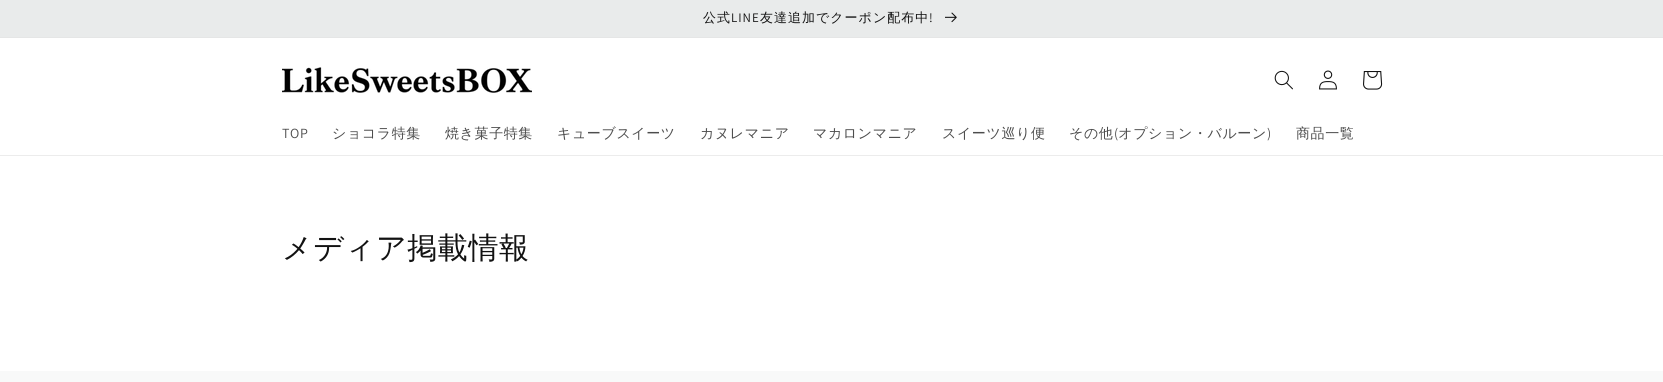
import math
import cairo


def write_spaced(ctx, x, y, s, letter, word):
	ctx.move_to(x, y)
	for ch in s:
		ctx.show_text(ch)
		ctx.rel_move_to(letter + word * (ch == ' '), 0)

def paste(ctx, path, x, y, w, h):
	ctx.save()
	ctx.set_source_surface(cairo.ImageSurface.create_from_png(path), x, y)
	ctx.rectangle(x, y, w, h)
	ctx.fill()
	ctx.restore()

def draw(ctx):
	ctx.set_source_rgb(1, 1, 1)
	ctx.paint()
	ctx.set_source_rgb(0.898, 0.902, 0.902)
	ctx.rectangle(0, 37, 1663, 1)
	ctx.fill()
	ctx.set_source_rgb(0.914, 0.918, 0.918)
	ctx.rectangle(0, 0, 1663, 37)
	ctx.fill()
	ctx.select_font_face('WenQuanYi Zen Hei Medium')
	ctx.set_font_size(13)
	ctx.set_source_rgb(0.071, 0.071, 0.071)
	write_spaced(ctx, 703, 22, '公式', 1, 0)
	ctx.select_font_face('Assistant')
	write_spaced(ctx, 731, 22, 'LINE', 1, 0)
	ctx.select_font_face('WenQuanYi Zen Hei Medium')
	write_spaced(ctx, 760, 22, '友達追加でクーポン配布中', 1, 0)
	ctx.select_font_face('Assistant')
	write_spaced(ctx, 929, 22, '!', 1, 0)
	paste(ctx, 'media/1.png', 945, 12, 12, 11)
	ctx.set_source_rgb(0.925, 0.925, 0.925)
	ctx.rectangle(0, 155, 1663, 1)
	ctx.fill()
	paste(ctx, 'media/2.png', 282, 67, 250, 26)
	paste(ctx, 'media/3.png', 1274, 70, 19, 20)
	paste(ctx, 'media/4.png', 1319, 70, 18, 20)
	paste(ctx, 'media/5.png', 1363, 71, 20, 19)
	ctx.set_font_size(14)
	ctx.set_source_rgb(0.302, 0.302, 0.302)
	write_spaced(ctx, 282, 138, 'TOP', 0.6, 0)
	ctx.select_font_face('WenQuanYi Zen Hei Medium')
	for x, y, s in [
		(332, 138, 'ショコラ特集'),
		(445, 138, '焼き菓子特集'),
		(557, 138, 'キューブスイーツ'),
		(700, 138, 'カヌレマニア'),
		(813, 138, 'マカロンマニア'),
		(942, 138, 'スイーツ巡り便'),
		(1069, 138, 'その他 オプション・バルーン'),
	]:
		write_spaced(ctx, x, y, s, 0.6, 0)
	ctx.select_font_face('Assistant')
	write_spaced(ctx, 1114, 138, '(', 0.6, 0)
	write_spaced(ctx, 1267, 138, ')', 0.6, 0)
	ctx.select_font_face('WenQuanYi Zen Hei Medium')
	write_spaced(ctx, 1296, 138, '商品一覧', 0.6, 0)
	ctx.set_font_size(30)
	ctx.set_source_rgb(0.071, 0.071, 0.071)
	write_spaced(ctx, 282, 258, 'メディア掲載情報', 0.6, 0)
	ctx.set_source_rgb(0.969, 0.973, 0.973)
	ctx.rectangle(0, 371, 1663, 11)
	ctx.fill()


surface = cairo.ImageSurface(cairo.FORMAT_RGB24, 1663, 382)
ctx = cairo.Context(surface)
options = cairo.FontOptions()
options.set_hint_metrics(cairo.HINT_METRICS_OFF)
options.set_hint_style(cairo.HINT_STYLE_NONE)
ctx.set_font_options(options)
ctx.set_miter_limit(4)
draw(ctx)
surface.write_to_png('image.png')
